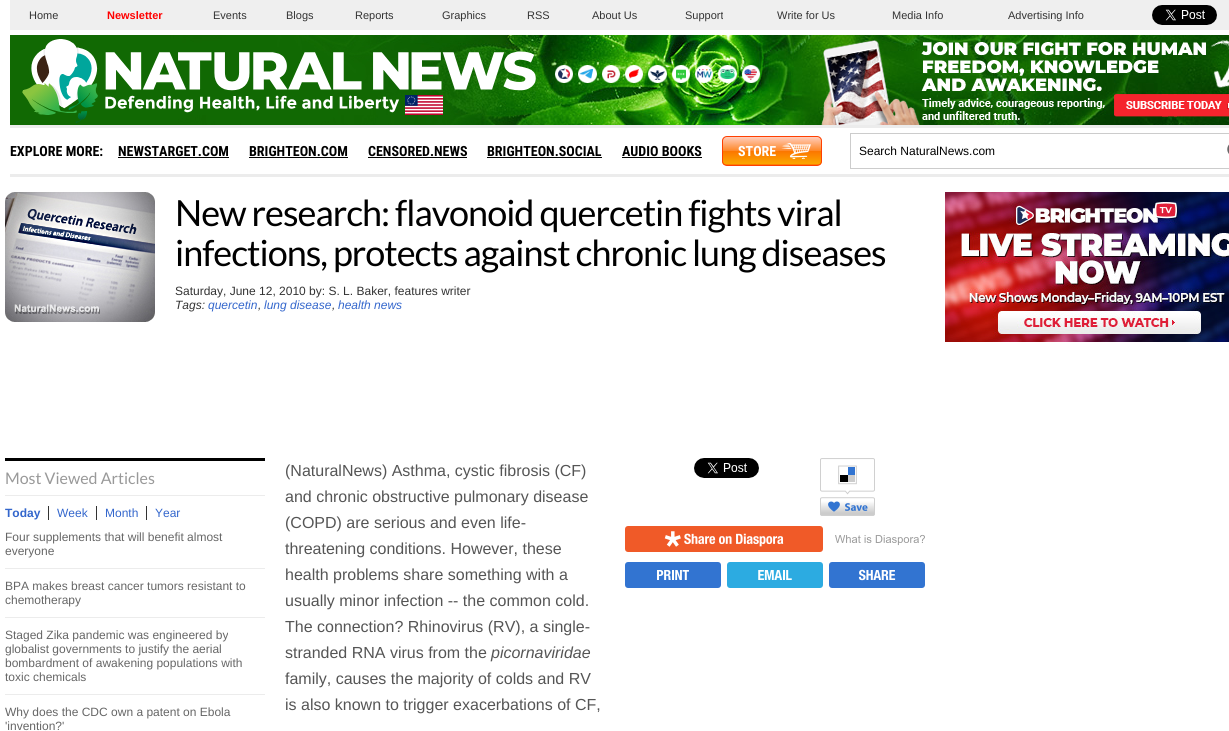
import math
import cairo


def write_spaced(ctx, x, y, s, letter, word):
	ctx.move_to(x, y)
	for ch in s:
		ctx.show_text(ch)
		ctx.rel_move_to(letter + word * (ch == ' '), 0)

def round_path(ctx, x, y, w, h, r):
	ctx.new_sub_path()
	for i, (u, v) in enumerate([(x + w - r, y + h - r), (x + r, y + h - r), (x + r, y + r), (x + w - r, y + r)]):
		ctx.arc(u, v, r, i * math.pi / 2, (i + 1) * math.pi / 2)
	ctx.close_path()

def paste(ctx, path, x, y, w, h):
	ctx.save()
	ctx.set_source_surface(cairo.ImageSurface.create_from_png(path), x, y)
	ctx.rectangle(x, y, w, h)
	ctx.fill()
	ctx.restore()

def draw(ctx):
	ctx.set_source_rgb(1, 1, 1)
	ctx.paint()
	ctx.set_source_rgb(0.937, 0.937, 0.937)
	ctx.rectangle(10, 0, 1219, 30)
	ctx.fill()
	ctx.select_font_face('Liberation Sans')
	ctx.set_font_size(11)
	ctx.set_source_rgb(0.2, 0.2, 0.2)
	ctx.move_to(29, 19)
	ctx.show_text('Home')
	ctx.select_font_face('Liberation Sans', cairo.FONT_SLANT_NORMAL, cairo.FONT_WEIGHT_BOLD)
	ctx.set_source_rgb(1, 0, 0)
	ctx.move_to(107, 19)
	ctx.show_text('Newsletter')
	ctx.select_font_face('Liberation Sans')
	ctx.set_source_rgb(0.2, 0.2, 0.2)
	for x, y, s in [
		(213, 19, 'Events'),
		(286, 19, 'Blogs'),
		(355, 19, 'Reports'),
		(442, 19, 'Graphics'),
		(527, 19, 'RSS'),
		(592, 19, 'About Us'),
		(685, 19, 'Support'),
		(777, 19, 'Write for Us'),
		(892, 19, 'Media Info'),
		(1008, 19, 'Advertising Info'),
	]:
		ctx.move_to(x, y)
		ctx.show_text(s)
	paste(ctx, 'media/1.png', 1152, 5, 65, 20)
	paste(ctx, 'media/2.png', 10, 35, 1219, 90)
	ctx.set_source_rgb(0.925, 0.925, 0.925)
	ctx.rectangle(10, 125, 1219, 3)
	ctx.fill()
	paste(ctx, 'media/3.png', 22, 39, 514, 84)
	paste(ctx, 'media/4.png', 555, 65, 18, 18)
	paste(ctx, 'media/5.png', 578, 65, 19, 18)
	paste(ctx, 'media/6.png', 602, 65, 18, 18)
	paste(ctx, 'media/7.png', 625, 65, 18, 18)
	paste(ctx, 'media/8.png', 648, 65, 19, 18)
	paste(ctx, 'media/9.png', 672, 65, 18, 18)
	paste(ctx, 'media/10.png', 695, 65, 18, 18)
	paste(ctx, 'media/11.png', 718, 65, 19, 18)
	paste(ctx, 'media/12.png', 742, 65, 18, 18)
	paste(ctx, 'media/13.png', 821, 40, 408, 85)
	ctx.rectangle(10, 174, 1219, 3)
	ctx.fill()
	ctx.select_font_face('Roboto Condensed', cairo.FONT_SLANT_NORMAL, cairo.FONT_WEIGHT_BOLD)
	ctx.set_font_size(14)
	ctx.set_source_rgb(0, 0, 0)
	ctx.move_to(10, 156)
	ctx.show_text('EXPLORE MORE:')
	ctx.move_to(118, 156)
	ctx.show_text('NEWSTARGET.COM')
	ctx.rectangle(118, 157, 111, 1)
	ctx.fill()
	ctx.move_to(249, 156)
	ctx.show_text('BRIGHTEON.COM')
	ctx.rectangle(249, 157, 99, 1)
	ctx.fill()
	ctx.move_to(368, 156)
	ctx.show_text('CENSORED.NEWS')
	ctx.rectangle(368, 157, 99, 1)
	ctx.fill()
	ctx.move_to(487, 156)
	ctx.show_text('BRIGHTEON.SOCIAL')
	ctx.rectangle(487, 157, 115, 1)
	ctx.fill()
	ctx.move_to(622, 156)
	ctx.show_text('AUDIO BOOKS')
	ctx.rectangle(622, 157, 80, 1)
	ctx.fill()
	ctx.save()
	round_path(ctx, 722, 136, 100, 30, 5)
	ctx.clip()
	gradient = cairo.LinearGradient(772, 137, 772, 165)
	gradient.add_color_stop_rgba(0, 1, 0.804, 0.737, 1)
	gradient.add_color_stop_rgba(0.49, 0.996, 0.533, 0.157, 1)
	gradient.add_color_stop_rgba(0.5, 0.988, 0.459, 0, 1)
	gradient.add_color_stop_rgba(0.97, 0.984, 0.659, 0, 1)
	gradient.add_color_stop_rgba(1, 1, 0.251, 0.004, 1)
	ctx.set_source(gradient)
	ctx.rectangle(722, 137, 100, 28)
	ctx.fill()
	ctx.restore()
	round_path(ctx, 722.5, 136.5, 99, 29, 4.5)
	ctx.set_source_rgb(1, 0.251, 0.004)
	ctx.set_line_width(1)
	ctx.stroke()
	ctx.set_source_rgb(1, 1, 1)
	ctx.move_to(738, 156)
	ctx.show_text('STORE')
	paste(ctx, 'media/14.png', 781, 143, 30, 16)
	ctx.rectangle(850.5, 133.5, 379, 35)
	ctx.set_source_rgb(0.8, 0.8, 0.8)
	ctx.stroke()
	ctx.select_font_face('Liberation Sans')
	ctx.set_font_size(12)
	ctx.set_source_rgb(0, 0, 0)
	ctx.move_to(859, 155)
	ctx.show_text('Search NaturalNews.com')
	paste(ctx, 'media/15.png', 1227, 144, 2, 10)
	paste(ctx, 'media/16.png', 5, 192, 150, 130)
	ctx.select_font_face('Lato')
	ctx.set_font_size(36)
	write_spaced(ctx, 175, 226, 'New research: flavonoid quercetin fights viral', -1, 0)
	write_spaced(ctx, 175, 266, 'infections, protects against chronic lung diseases', -1, 0)
	ctx.select_font_face('Liberation Sans')
	ctx.set_font_size(12)
	ctx.set_source_rgb(0.2, 0.2, 0.2)
	ctx.move_to(175, 295)
	ctx.show_text('Saturday, June 12, 2010 by: S. L. Baker, features writer')
	ctx.select_font_face('Liberation Sans', cairo.FONT_SLANT_ITALIC)
	ctx.move_to(175, 309)
	ctx.show_text('Tags:')
	ctx.set_source_rgb(0.2, 0.4, 0.8)
	ctx.move_to(208, 309)
	ctx.show_text('quercetin')
	ctx.set_source_rgb(0.2, 0.2, 0.2)
	ctx.move_to(258, 309)
	ctx.show_text(',')
	ctx.set_source_rgb(0.2, 0.4, 0.8)
	ctx.move_to(264, 309)
	ctx.show_text('lung disease')
	ctx.set_source_rgb(0.2, 0.2, 0.2)
	ctx.move_to(332, 309)
	ctx.show_text(',')
	ctx.set_source_rgb(0.2, 0.4, 0.8)
	ctx.move_to(338, 309)
	ctx.show_text('health news')
	ctx.set_source_rgb(0, 0, 0)
	ctx.rectangle(5, 458, 260, 3)
	ctx.fill()
	ctx.set_source_rgb(0.925, 0.925, 0.925)
	ctx.rectangle(5, 495, 260, 1)
	ctx.fill()
	ctx.select_font_face('Lato')
	ctx.set_font_size(16)
	ctx.set_source_rgb(0.6, 0.6, 0.6)
	ctx.move_to(5, 484)
	ctx.show_text('Most Viewed Articles')
	ctx.set_source_rgb(0.2, 0.2, 0.2)
	ctx.rectangle(48, 506, 1, 14)
	ctx.fill()
	ctx.select_font_face('Liberation Sans', cairo.FONT_SLANT_NORMAL, cairo.FONT_WEIGHT_BOLD)
	ctx.set_font_size(12)
	ctx.set_source_rgb(0.2, 0.4, 0.8)
	ctx.move_to(5, 517)
	ctx.show_text('Today')
	ctx.set_source_rgb(0.2, 0.2, 0.2)
	ctx.rectangle(96, 506, 1, 14)
	ctx.fill()
	ctx.select_font_face('Liberation Sans')
	ctx.set_source_rgb(0.2, 0.4, 0.8)
	ctx.move_to(57, 517)
	ctx.show_text('Week')
	ctx.set_source_rgb(0.2, 0.2, 0.2)
	ctx.rectangle(146, 506, 1, 14)
	ctx.fill()
	ctx.set_source_rgb(0.2, 0.4, 0.8)
	ctx.move_to(105, 517)
	ctx.show_text('Month')
	ctx.move_to(155, 517)
	ctx.show_text('Year')
	ctx.set_source_rgb(0.925, 0.925, 0.925)
	ctx.rectangle(5, 568, 260, 1)
	ctx.fill()
	ctx.set_source_rgb(0.4, 0.4, 0.4)
	ctx.move_to(5, 541)
	ctx.show_text('Four supplements that will benefit almost')
	ctx.move_to(5, 555)
	ctx.show_text('everyone')
	ctx.set_source_rgb(0.925, 0.925, 0.925)
	ctx.rectangle(5, 617, 260, 1)
	ctx.fill()
	ctx.set_source_rgb(0.4, 0.4, 0.4)
	ctx.move_to(5, 590)
	ctx.show_text('BPA makes breast cancer tumors resistant to')
	ctx.move_to(5, 604)
	ctx.show_text('chemotherapy')
	ctx.set_source_rgb(0.925, 0.925, 0.925)
	ctx.rectangle(5, 694, 260, 1)
	ctx.fill()
	ctx.set_source_rgb(0.4, 0.4, 0.4)
	for x, y, s in [
		(5, 639, 'Staged Zika pandemic was engineered by'),
		(5, 653, 'globalist governments to justify the aerial'),
		(5, 667, 'bombardment of awakening populations with'),
		(5, 681, 'toxic chemicals'),
		(5, 716, 'Why does the CDC own a patent on Ebola'),
		(5, 730, '\'invention?\''),
	]:
		ctx.move_to(x, y)
		ctx.show_text(s)
	ctx.set_font_size(16)
	ctx.set_source_rgb(0.333, 0.333, 0.333)
	ctx.move_to(285, 476)
	ctx.show_text('(NaturalNews) Asthma, cystic fibrosis (CF)')
	paste(ctx, 'media/17.png', 694, 458, 65, 20)
	paste(ctx, 'media/18.png', 820, 458, 55, 58)
	paste(ctx, 'media/19.png', 625, 526, 198, 26)
	paste(ctx, 'media/20.png', 835, 534, 90, 12)
	paste(ctx, 'media/21.png', 625, 562, 96, 26)
	paste(ctx, 'media/22.png', 727, 562, 96, 26)
	paste(ctx, 'media/23.png', 829, 562, 96, 26)
	for x, y, s in [
		(285, 502, 'and chronic obstructive pulmonary disease'),
		(285, 528, '(COPD) are serious and even life-'),
		(285, 554, 'threatening conditions. However, these'),
		(285, 580, 'health problems share something with a'),
		(285, 606, 'usually minor infection -- the common cold.'),
		(285, 632, 'The connection? Rhinovirus (RV), a single-'),
		(285, 658, 'stranded RNA virus from the'),
	]:
		ctx.move_to(x, y)
		ctx.show_text(s)
	ctx.select_font_face('Liberation Sans', cairo.FONT_SLANT_ITALIC)
	ctx.move_to(491, 658)
	ctx.show_text('picornaviridae')
	ctx.select_font_face('Liberation Sans')
	ctx.move_to(285, 684)
	ctx.show_text('family, causes the majority of colds and RV')
	ctx.move_to(285, 710)
	ctx.show_text('is also known to trigger exacerbations of CF,')
	paste(ctx, 'media/24.png', 945, 192, 284, 150)


surface = cairo.ImageSurface(cairo.FORMAT_RGB24, 1229, 731)
ctx = cairo.Context(surface)
options = cairo.FontOptions()
options.set_hint_metrics(cairo.HINT_METRICS_OFF)
options.set_hint_style(cairo.HINT_STYLE_NONE)
ctx.set_font_options(options)
ctx.set_miter_limit(4)
draw(ctx)
surface.write_to_png('image.png')
